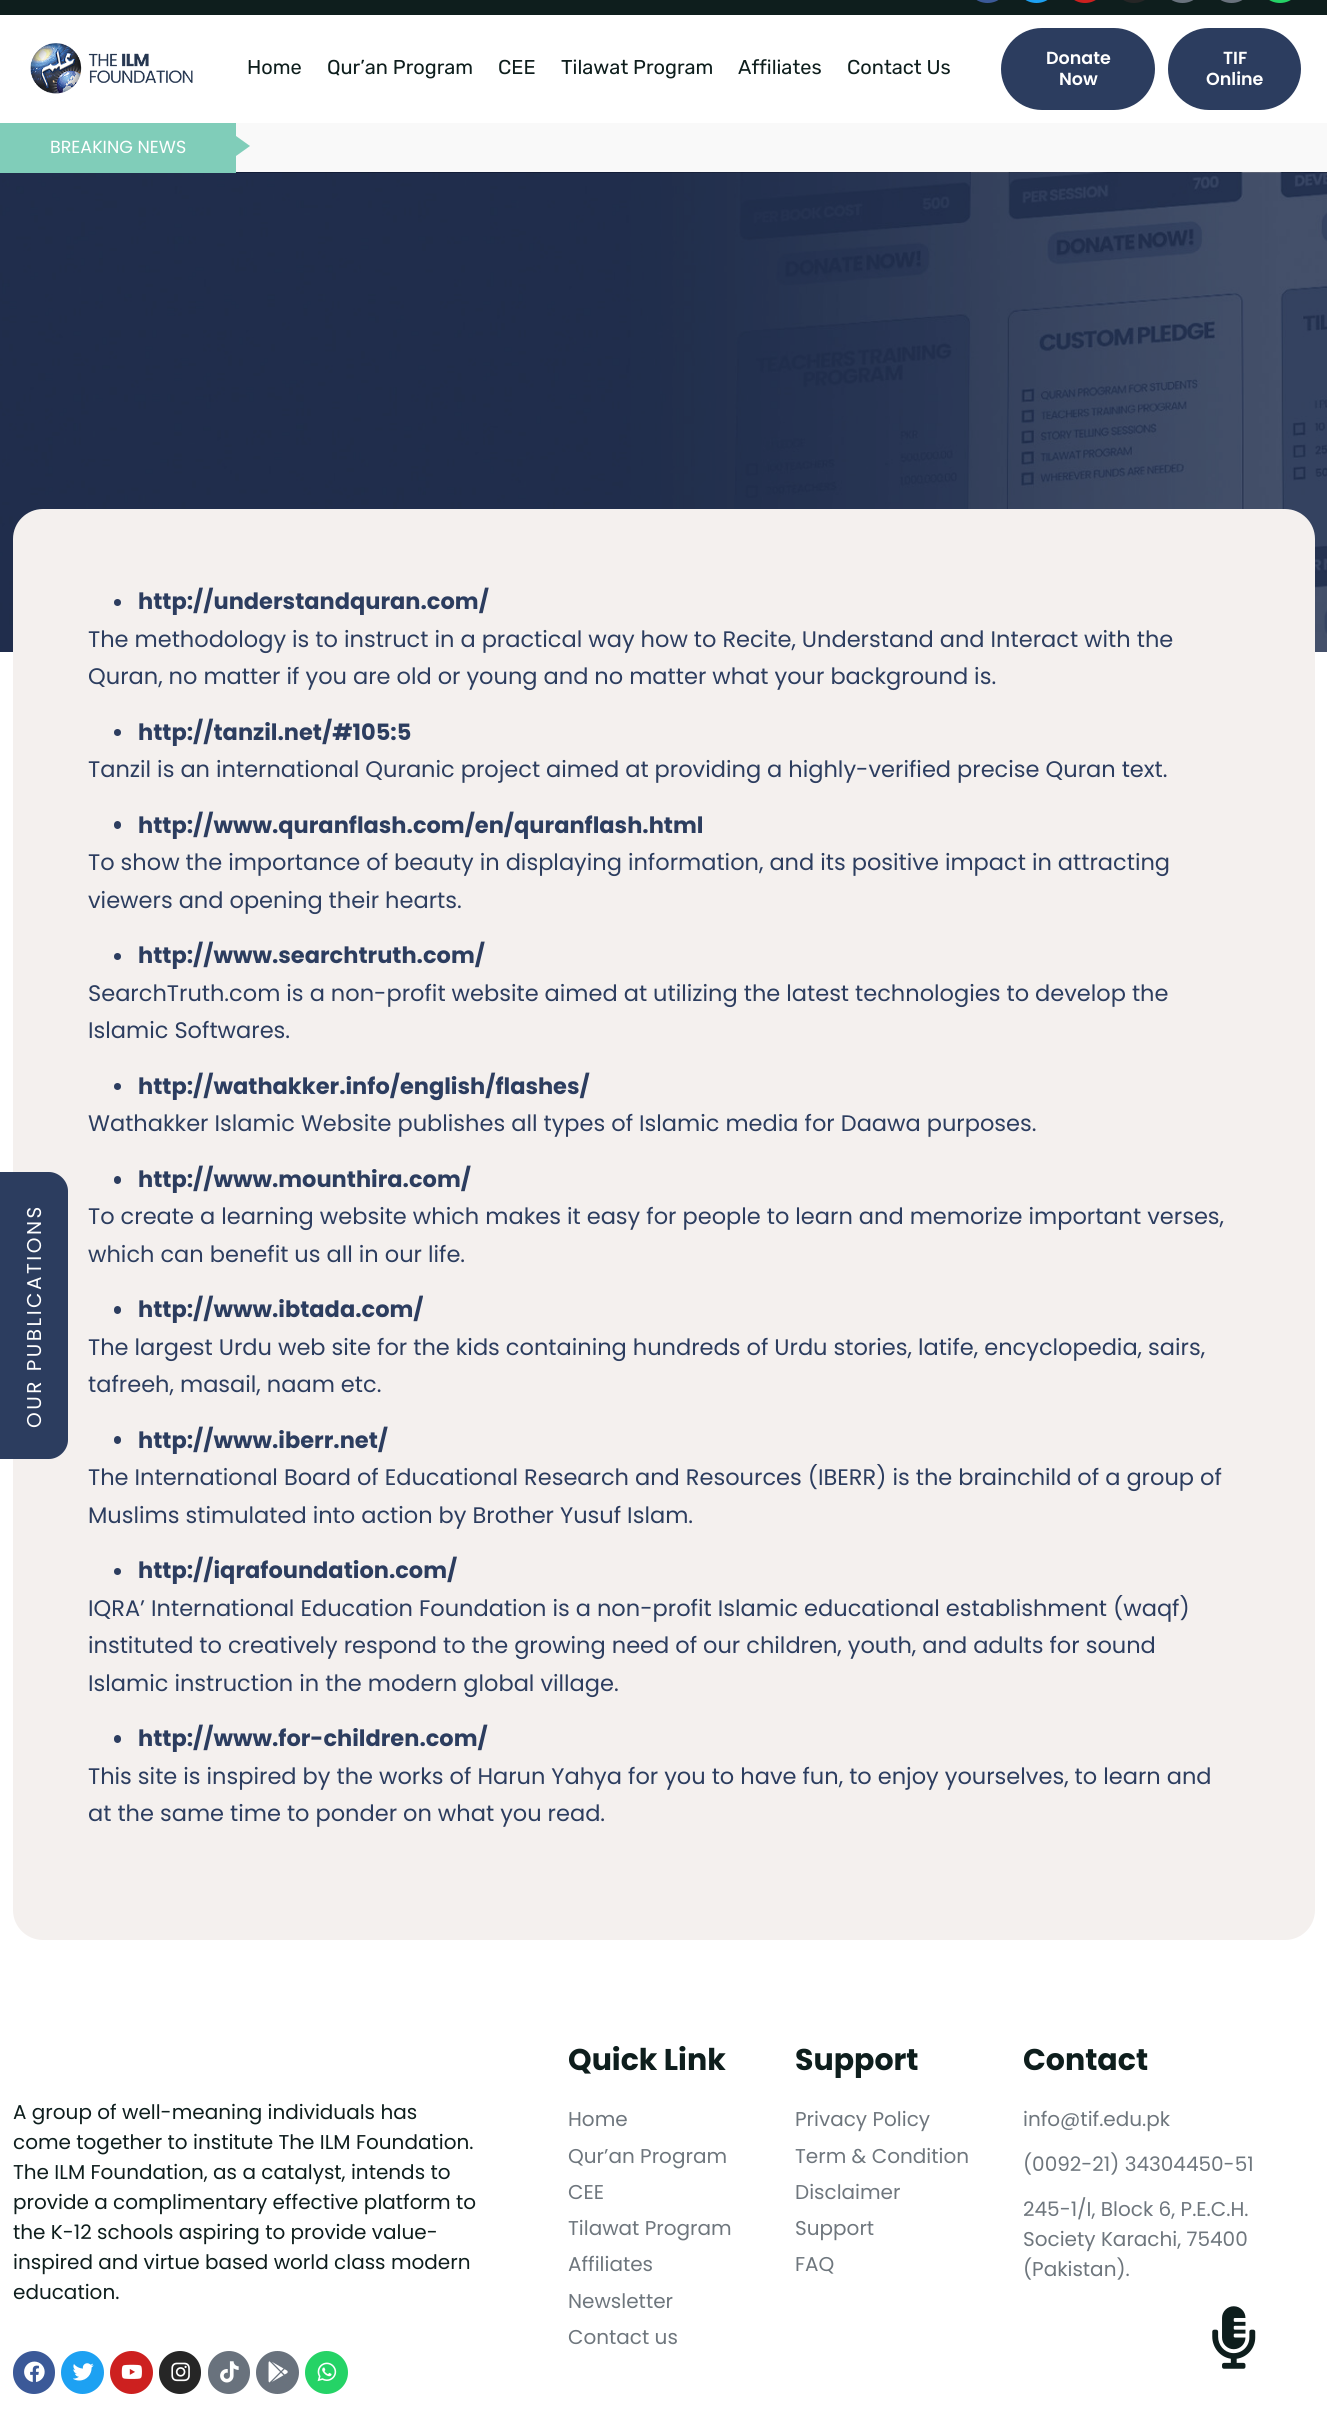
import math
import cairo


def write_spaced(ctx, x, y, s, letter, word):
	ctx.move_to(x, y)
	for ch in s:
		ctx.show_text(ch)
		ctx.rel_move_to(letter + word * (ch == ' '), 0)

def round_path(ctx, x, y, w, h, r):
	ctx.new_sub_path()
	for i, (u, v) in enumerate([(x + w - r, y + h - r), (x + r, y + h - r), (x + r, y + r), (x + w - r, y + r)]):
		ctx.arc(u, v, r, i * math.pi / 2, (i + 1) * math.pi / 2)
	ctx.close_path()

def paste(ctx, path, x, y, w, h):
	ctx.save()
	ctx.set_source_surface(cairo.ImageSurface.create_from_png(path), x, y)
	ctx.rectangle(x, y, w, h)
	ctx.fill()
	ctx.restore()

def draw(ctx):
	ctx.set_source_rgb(1, 1, 1)
	ctx.paint()
	ctx.set_source_rgb(0.055, 0.118, 0.114)
	ctx.rectangle(0, 0, 1327, 15)
	ctx.fill()
	ctx.set_source_rgb(0.231, 0.349, 0.596)
	round_path(ctx, 966, -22, 43, 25, 21.5)
	ctx.fill()
	ctx.set_source_rgb(0.114, 0.631, 0.949)
	round_path(ctx, 1015, -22, 43, 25, 21.5)
	ctx.fill()
	ctx.set_source_rgb(0.804, 0.125, 0.122)
	round_path(ctx, 1064, -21, 42, 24, 21)
	ctx.fill()
	ctx.set_source_rgb(0.149, 0.149, 0.149)
	round_path(ctx, 1113, -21, 42, 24, 21)
	ctx.fill()
	ctx.set_source_rgb(0.412, 0.447, 0.49)
	round_path(ctx, 1161, -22, 43, 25, 21.5)
	ctx.fill()
	round_path(ctx, 1210, -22, 43, 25, 21.5)
	ctx.fill()
	ctx.set_source_rgb(0.145, 0.827, 0.4)
	round_path(ctx, 1259, -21, 42, 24, 21)
	ctx.fill()
	paste(ctx, 'media/1.png', 30, 43, 163, 51)
	ctx.select_font_face('Rubik')
	ctx.set_font_size(20)
	ctx.set_source_rgb(0.055, 0.118, 0.114)
	for x, y, s in [
		(247, 74, 'Home'),
		(327, 74, 'Qur’an Program'),
		(498, 74, 'CEE'),
		(561, 74, 'Tilawat Program'),
		(738, 74, 'Affiliates'),
		(847, 74, 'Contact Us'),
	]:
		ctx.move_to(x, y)
		ctx.show_text(s)
	ctx.set_source_rgb(0.173, 0.239, 0.373)
	round_path(ctx, 1001, 28, 154, 82, 41)
	ctx.fill()
	ctx.select_font_face('Poppins SemiBold')
	ctx.set_font_size(17.5)
	ctx.set_source_rgb(1, 1, 1)
	ctx.move_to(1046, 64)
	ctx.show_text('Donate')
	ctx.move_to(1059, 85)
	ctx.show_text('Now')
	ctx.set_source_rgb(0.173, 0.239, 0.373)
	round_path(ctx, 1168, 28, 133, 82, 41)
	ctx.fill()
	ctx.set_source_rgb(1, 1, 1)
	ctx.move_to(1223, 64)
	ctx.show_text('TIF')
	ctx.move_to(1206, 85)
	ctx.show_text('Online')
	ctx.set_source_rgb(0.976, 0.976, 0.976)
	ctx.rectangle(236, 123, 1091, 49)
	ctx.fill()
	paste(ctx, 'media/2.png', 0, 172, 1327, 480)
	ctx.set_source_rgb(0.502, 0.804, 0.725)
	ctx.rectangle(0, 123, 236, 50)
	ctx.fill()
	ctx.select_font_face('Poppins')
	ctx.set_source_rgb(1, 1, 1)
	ctx.move_to(50, 153)
	ctx.show_text('BREAKING NEWS')
	ctx.set_source_rgb(0.502, 0.804, 0.725)
	ctx.new_path()
	ctx.move_to(236, 156)
	ctx.line_to(236, 136)
	ctx.line_to(250, 146)
	ctx.close_path()
	ctx.fill()
	ctx.set_source_rgb(0.957, 0.941, 0.933)
	round_path(ctx, 13, 509, 1302, 1431, 30)
	ctx.fill()
	ctx.set_source_rgb(0.173, 0.239, 0.373)
	ctx.arc(117.5, 602.5, 3.5, 0, 2 * math.pi)
	ctx.fill()
	ctx.select_font_face('Poppins', cairo.FONT_SLANT_NORMAL, cairo.FONT_WEIGHT_BOLD)
	ctx.set_font_size(22.5)
	ctx.move_to(138, 609)
	ctx.show_text('http://understandquran.com/')
	ctx.select_font_face('Poppins')
	ctx.move_to(88, 647)
	ctx.show_text('The methodology is to instruct in a practical way how to Recite, Understand and Interact with the')
	ctx.move_to(88, 684)
	ctx.show_text('Quran, no matter if you are old or young and no matter what your background is.')
	ctx.new_path()
	ctx.arc(117.5, 732.5, 3.5, 0, 2 * math.pi)
	ctx.fill()
	ctx.select_font_face('Poppins', cairo.FONT_SLANT_NORMAL, cairo.FONT_WEIGHT_BOLD)
	ctx.move_to(138, 740)
	ctx.show_text('http://tanzil.net/#105:5')
	ctx.select_font_face('Poppins')
	ctx.move_to(88, 777)
	ctx.show_text('Tanzil is an international Quranic project aimed at providing a highly-verified precise Quran text.')
	round_path(ctx, 114, 821, 7, 8, 3.5)
	ctx.fill()
	ctx.select_font_face('Poppins', cairo.FONT_SLANT_NORMAL, cairo.FONT_WEIGHT_BOLD)
	ctx.move_to(138, 833)
	ctx.show_text('http://www.quranflash.com/en/quranflash.html')
	ctx.select_font_face('Poppins')
	ctx.move_to(88, 870)
	ctx.show_text('To show the importance of beauty in displaying information, and its positive impact in attracting')
	ctx.move_to(88, 908)
	ctx.show_text('viewers and opening their hearts.')
	ctx.new_path()
	ctx.arc(117.5, 956.5, 3.5, 0, 2 * math.pi)
	ctx.fill()
	ctx.select_font_face('Poppins', cairo.FONT_SLANT_NORMAL, cairo.FONT_WEIGHT_BOLD)
	ctx.move_to(138, 963)
	ctx.show_text('http://www.searchtruth.com/')
	ctx.select_font_face('Poppins')
	ctx.move_to(88, 1001)
	ctx.show_text('SearchTruth.com is a non-profit website aimed at utilizing the latest technologies to develop the')
	ctx.move_to(88, 1038)
	ctx.show_text('Islamic Softwares.')
	ctx.new_path()
	ctx.arc(117.5, 1086.5, 3.5, 0, 2 * math.pi)
	ctx.fill()
	ctx.select_font_face('Poppins', cairo.FONT_SLANT_NORMAL, cairo.FONT_WEIGHT_BOLD)
	ctx.move_to(138, 1094)
	ctx.show_text('http://wathakker.info/english/flashes/')
	ctx.select_font_face('Poppins')
	ctx.move_to(88, 1131)
	ctx.show_text('Wathakker Islamic Website publishes all types of Islamic media for Daawa purposes.')
	round_path(ctx, 114, 1176, 7, 8, 3.5)
	ctx.fill()
	ctx.select_font_face('Poppins', cairo.FONT_SLANT_NORMAL, cairo.FONT_WEIGHT_BOLD)
	ctx.move_to(138, 1187)
	ctx.show_text('http://www.mounthira.com/')
	ctx.select_font_face('Poppins')
	ctx.move_to(88, 1224)
	ctx.show_text('To create a learning website which makes it easy for people to learn and memorize important verses,')
	ctx.move_to(88, 1262)
	ctx.show_text('which can benefit us all in our life.')
	round_path(ctx, 114, 1306, 7, 8, 3.5)
	ctx.fill()
	ctx.select_font_face('Poppins', cairo.FONT_SLANT_NORMAL, cairo.FONT_WEIGHT_BOLD)
	ctx.move_to(138, 1317)
	ctx.show_text('http://www.ibtada.com/')
	ctx.select_font_face('Poppins')
	ctx.move_to(88, 1355)
	ctx.show_text('The largest Urdu web site for the kids containing hundreds of Urdu stories, latife, encyclopedia, sairs,')
	ctx.move_to(88, 1392)
	ctx.show_text('tafreeh, masail, naam etc.')
	round_path(ctx, 114, 1436, 7, 8, 3.5)
	ctx.fill()
	ctx.select_font_face('Poppins', cairo.FONT_SLANT_NORMAL, cairo.FONT_WEIGHT_BOLD)
	ctx.move_to(138, 1448)
	ctx.show_text('http://www.iberr.net/')
	ctx.select_font_face('Poppins')
	ctx.move_to(88, 1485)
	ctx.show_text('The International Board of Educational Research and Resources (IBERR) is the brainchild of a group of')
	ctx.move_to(88, 1523)
	ctx.show_text('Muslims stimulated into action by Brother Yusuf Islam.')
	ctx.new_path()
	ctx.arc(117.5, 1571.5, 3.5, 0, 2 * math.pi)
	ctx.fill()
	ctx.select_font_face('Poppins', cairo.FONT_SLANT_NORMAL, cairo.FONT_WEIGHT_BOLD)
	ctx.move_to(138, 1578)
	ctx.show_text('http://iqrafoundation.com/')
	ctx.select_font_face('Poppins')
	for x, y, s in [
		(88, 1616, 'IQRA’ International Education Foundation is a non-profit Islamic educational establishment (waqf)'),
		(88, 1653, 'instituted to creatively respond to the growing need of our children, youth, and adults for sound'),
		(88, 1691, 'Islamic instruction in the modern global village.'),
	]:
		ctx.move_to(x, y)
		ctx.show_text(s)
	round_path(ctx, 114, 1735, 7, 8, 3.5)
	ctx.fill()
	ctx.select_font_face('Poppins', cairo.FONT_SLANT_NORMAL, cairo.FONT_WEIGHT_BOLD)
	ctx.move_to(138, 1746)
	ctx.show_text('http://www.for-children.com/')
	ctx.select_font_face('Poppins')
	ctx.move_to(88, 1784)
	ctx.show_text('This site is inspired by the works of Harun Yahya for you to have fun, to enjoy yourselves, to learn and')
	ctx.move_to(88, 1821)
	ctx.show_text('at the same time to ponder on what you read.')
	ctx.new_path()
	ctx.move_to(0, 1459)
	ctx.line_to(0, 1172)
	ctx.line_to(49, 1172)
	ctx.curve_to(59, 1172, 68, 1181, 68, 1191)
	ctx.line_to(68, 1440)
	ctx.curve_to(68, 1450, 59, 1459, 49, 1459)
	ctx.close_path()
	ctx.fill()
	ctx.set_font_size(20)
	ctx.set_source_rgb(1, 1, 1)
	ctx.save()
	ctx.translate(41, 1428)
	ctx.rotate(-90 * math.pi / 180)
	write_spaced(ctx, 0, 0, 'OUR PUBLICATIONS', 2.5, 0)
	ctx.restore()
	paste(ctx, 'media/3.png', 1212, 2306, 44, 63)
	ctx.set_source_rgb(0.055, 0.118, 0.114)
	for x, y, s in [
		(13, 2119, 'A group of well-meaning individuals has'),
		(13, 2149, 'come together to institute The ILM Foundation.'),
		(13, 2179, 'The ILM Foundation, as a catalyst, intends to'),
		(13, 2209, 'provide a complimentary effective platform to'),
		(13, 2239, 'the K-12 schools aspiring to provide value-'),
		(13, 2269, 'inspired and virtue based world class modern'),
		(13, 2299, 'education.'),
	]:
		ctx.move_to(x, y)
		ctx.show_text(s)
	ctx.set_source_rgb(0.231, 0.349, 0.596)
	round_path(ctx, 13, 2351, 42, 43, 21)
	ctx.fill()
	paste(ctx, 'media/4.png', 24, 2361, 21, 21)
	ctx.set_source_rgb(0.114, 0.631, 0.949)
	ctx.arc(82.5, 2372.5, 21.5, 0, 2 * math.pi)
	ctx.fill()
	paste(ctx, 'media/5.png', 73, 2363, 21, 18)
	ctx.set_source_rgb(0.804, 0.125, 0.122)
	ctx.arc(131.5, 2372.5, 21.5, 0, 2 * math.pi)
	ctx.fill()
	paste(ctx, 'media/6.png', 121, 2364, 21, 15)
	ctx.set_source_rgb(0.149, 0.149, 0.149)
	round_path(ctx, 159, 2351, 42, 43, 21)
	ctx.fill()
	paste(ctx, 'media/7.png', 171, 2362, 19, 20)
	ctx.set_source_rgb(0.412, 0.447, 0.49)
	round_path(ctx, 208, 2351, 42, 43, 21)
	ctx.fill()
	paste(ctx, 'media/8.png', 220, 2361, 19, 22)
	ctx.arc(277.5, 2372.5, 21.5, 0, 2 * math.pi)
	ctx.fill()
	paste(ctx, 'media/9.png', 268, 2361, 20, 22)
	ctx.set_source_rgb(0.145, 0.827, 0.4)
	ctx.arc(326.5, 2372.5, 21.5, 0, 2 * math.pi)
	ctx.fill()
	paste(ctx, 'media/10.png', 317, 2362, 20, 20)
	ctx.select_font_face('Poppins', cairo.FONT_SLANT_NORMAL, cairo.FONT_WEIGHT_BOLD)
	ctx.set_font_size(30)
	ctx.set_source_rgb(0.055, 0.118, 0.114)
	ctx.move_to(568, 2070)
	ctx.show_text('Quick Link')
	ctx.select_font_face('Poppins')
	ctx.set_font_size(20)
	ctx.set_source_rgb(0.431, 0.463, 0.49)
	for x, y, s in [
		(568, 2126, 'Home'),
		(568, 2163, 'Qur’an Program'),
		(568, 2199, 'CEE'),
		(568, 2235, 'Tilawat Program'),
		(568, 2271, 'Affiliates'),
		(568, 2308, 'Newsletter'),
		(568, 2344, 'Contact us'),
	]:
		ctx.move_to(x, y)
		ctx.show_text(s)
	ctx.select_font_face('Poppins', cairo.FONT_SLANT_NORMAL, cairo.FONT_WEIGHT_BOLD)
	ctx.set_font_size(30)
	ctx.set_source_rgb(0.055, 0.118, 0.114)
	ctx.move_to(795, 2070)
	ctx.show_text('Support')
	ctx.select_font_face('Poppins')
	ctx.set_font_size(20)
	ctx.set_source_rgb(0.431, 0.463, 0.49)
	for x, y, s in [
		(795, 2126, 'Privacy Policy'),
		(795, 2163, 'Term & Condition'),
		(795, 2199, 'Disclaimer'),
		(795, 2235, 'Support'),
		(795, 2271, 'FAQ'),
	]:
		ctx.move_to(x, y)
		ctx.show_text(s)
	ctx.select_font_face('Poppins', cairo.FONT_SLANT_NORMAL, cairo.FONT_WEIGHT_BOLD)
	ctx.set_font_size(30)
	ctx.set_source_rgb(0.055, 0.118, 0.114)
	ctx.move_to(1023, 2070)
	ctx.show_text('Contact')
	ctx.select_font_face('Poppins')
	ctx.set_font_size(20)
	ctx.set_source_rgb(0.431, 0.463, 0.49)
	for x, y, s in [
		(1023, 2126, 'info@tif.edu.pk'),
		(1023, 2171, '(0092-21) 34304450-51'),
		(1023, 2216, '245-1/I, Block 6, P.E.C.H.'),
		(1023, 2246, 'Society Karachi, 75400'),
		(1023, 2276, '(Pakistan).'),
	]:
		ctx.move_to(x, y)
		ctx.show_text(s)


surface = cairo.ImageSurface(cairo.FORMAT_RGB24, 1327, 2431)
ctx = cairo.Context(surface)
options = cairo.FontOptions()
options.set_hint_metrics(cairo.HINT_METRICS_OFF)
options.set_hint_style(cairo.HINT_STYLE_NONE)
ctx.set_font_options(options)
ctx.set_miter_limit(4)
draw(ctx)
surface.write_to_png('image.png')
